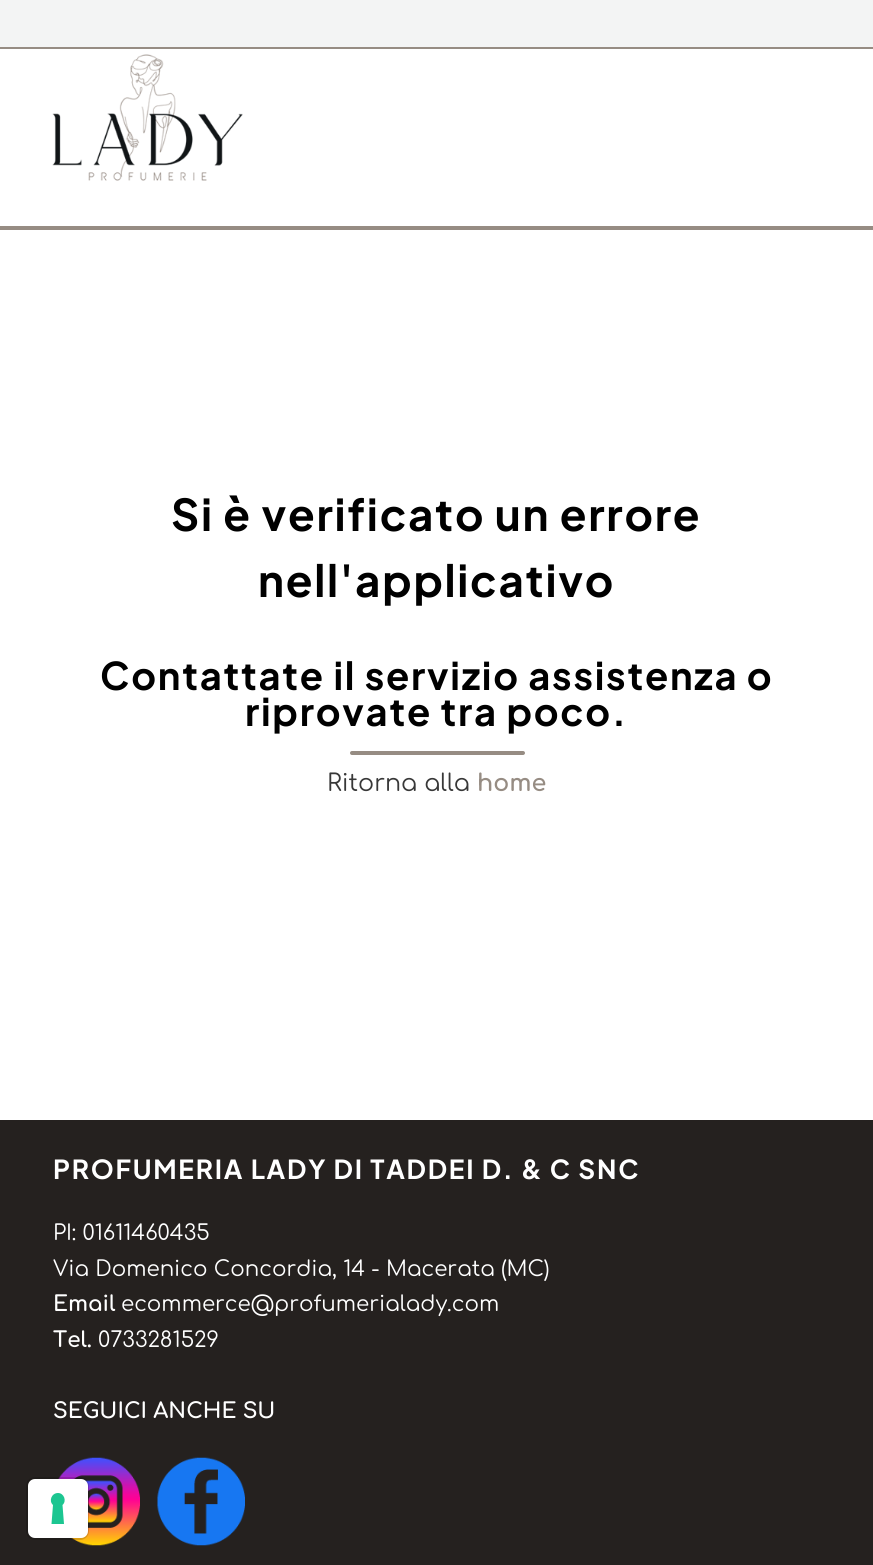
import math
import cairo


def write_spaced(ctx, x, y, s, letter, word):
	ctx.move_to(x, y)
	for ch in s:
		ctx.show_text(ch)
		ctx.rel_move_to(letter + word * (ch == ' '), 0)

def round_path(ctx, x, y, w, h, r):
	ctx.new_sub_path()
	for i, (u, v) in enumerate([(x + w - r, y + h - r), (x + r, y + h - r), (x + r, y + r), (x + w - r, y + r)]):
		ctx.arc(u, v, r, i * math.pi / 2, (i + 1) * math.pi / 2)
	ctx.close_path()

def paste(ctx, path, x, y, w, h):
	ctx.save()
	ctx.set_source_surface(cairo.ImageSurface.create_from_png(path), x, y)
	ctx.rectangle(x, y, w, h)
	ctx.fill()
	ctx.restore()

def draw(ctx):
	ctx.set_source_rgb(1, 1, 1)
	ctx.paint()
	ctx.set_source_rgb(0.953, 0.957, 0.957)
	ctx.rectangle(0, 0, 873, 47)
	ctx.fill()
	ctx.set_source_rgb(0.588, 0.549, 0.514)
	ctx.rectangle(0, 47, 873, 2)
	ctx.rectangle(0, 226, 873, 4)
	ctx.fill()
	paste(ctx, 'media/1.png', 52, 54, 191, 127)
	ctx.select_font_face('Plus Jakarta Sans', cairo.FONT_SLANT_NORMAL, cairo.FONT_WEIGHT_BOLD)
	ctx.set_font_size(43.75)
	ctx.set_source_rgb(0, 0, 0)
	write_spaced(ctx, 171, 531, 'Si è verificato un errore', 1.75, 0)
	write_spaced(ctx, 258, 597, 'nell\'applicativo', 1.75, 0)
	ctx.set_font_size(38.1)
	write_spaced(ctx, 100, 690, 'Contattate il servizio assistenza o', 1.75, 0)
	write_spaced(ctx, 245, 726, 'riprovate tra poco.', 1.75, 0)
	ctx.set_source_rgb(0.588, 0.549, 0.514)
	round_path(ctx, 350, 751, 175, 4, 2)
	ctx.fill()
	ctx.select_font_face('Comfortaa')
	ctx.set_font_size(23.75)
	ctx.set_source_rgb(0.22, 0.22, 0.22)
	ctx.move_to(327, 791)
	ctx.show_text('Ritorna alla')
	ctx.select_font_face('Comfortaa', cairo.FONT_SLANT_NORMAL, cairo.FONT_WEIGHT_BOLD)
	ctx.set_source_rgb(0.588, 0.549, 0.514)
	ctx.move_to(477, 791)
	ctx.show_text('home')
	ctx.set_source_rgb(0.145, 0.129, 0.122)
	ctx.rectangle(0, 1120, 873, 445)
	ctx.fill()
	ctx.select_font_face('Plus Jakarta Sans', cairo.FONT_SLANT_NORMAL, cairo.FONT_WEIGHT_BOLD)
	ctx.set_font_size(26.2)
	ctx.set_source_rgb(1, 1, 1)
	write_spaced(ctx, 53, 1179, 'PROFUMERIA LADY DI TADDEI D. & C SNC', 1.75, 0)
	ctx.select_font_face('Comfortaa')
	ctx.set_font_size(21.4)
	ctx.move_to(53, 1240)
	ctx.show_text('PI: 01611460435')
	ctx.move_to(53, 1276)
	ctx.show_text('Via Domenico Concordia, 14 - Macerata (MC)')
	ctx.select_font_face('Comfortaa', cairo.FONT_SLANT_NORMAL, cairo.FONT_WEIGHT_BOLD)
	ctx.move_to(53, 1311)
	ctx.show_text('Email')
	ctx.select_font_face('Comfortaa')
	ctx.move_to(121, 1311)
	ctx.show_text('ecommerce@profumerialady.com')
	ctx.select_font_face('Comfortaa', cairo.FONT_SLANT_NORMAL, cairo.FONT_WEIGHT_BOLD)
	ctx.move_to(53, 1347)
	ctx.show_text('Tel.')
	ctx.select_font_face('Comfortaa')
	ctx.move_to(98, 1347)
	ctx.show_text('0733281529')
	ctx.select_font_face('Comfortaa', cairo.FONT_SLANT_NORMAL, cairo.FONT_WEIGHT_BOLD)
	ctx.move_to(53, 1418)
	ctx.show_text('SEGUICI ANCHE SU')
	paste(ctx, 'media/2.png', 58, 1457, 82, 89)
	paste(ctx, 'media/3.png', 157, 1457, 88, 89)
	round_path(ctx, 27, 1478, 61, 61, 8)
	ctx.set_source_rgba(0, 0, 0, 0.15)
	ctx.stroke()
	ctx.set_source_rgb(1, 1, 1)
	round_path(ctx, 28, 1479, 60, 59, 7)
	ctx.fill()
	ctx.set_source_rgb(0.11, 0.776, 0.569)
	ctx.set_fill_rule(cairo.FILL_RULE_EVEN_ODD)
	ctx.new_path()
	ctx.move_to(58, 1493)
	ctx.curve_to(64, 1493, 67, 1501, 62.5, 1505)
	ctx.line_to(64, 1524)
	ctx.line_to(51.5, 1524)
	ctx.line_to(53, 1505)
	ctx.curve_to(48.5, 1501, 51.5, 1493, 58, 1493)
	ctx.close_path()
	ctx.fill()


surface = cairo.ImageSurface(cairo.FORMAT_RGB24, 873, 1565)
ctx = cairo.Context(surface)
options = cairo.FontOptions()
options.set_hint_metrics(cairo.HINT_METRICS_OFF)
options.set_hint_style(cairo.HINT_STYLE_NONE)
ctx.set_font_options(options)
ctx.set_miter_limit(4)
draw(ctx)
surface.write_to_png('image.png')
